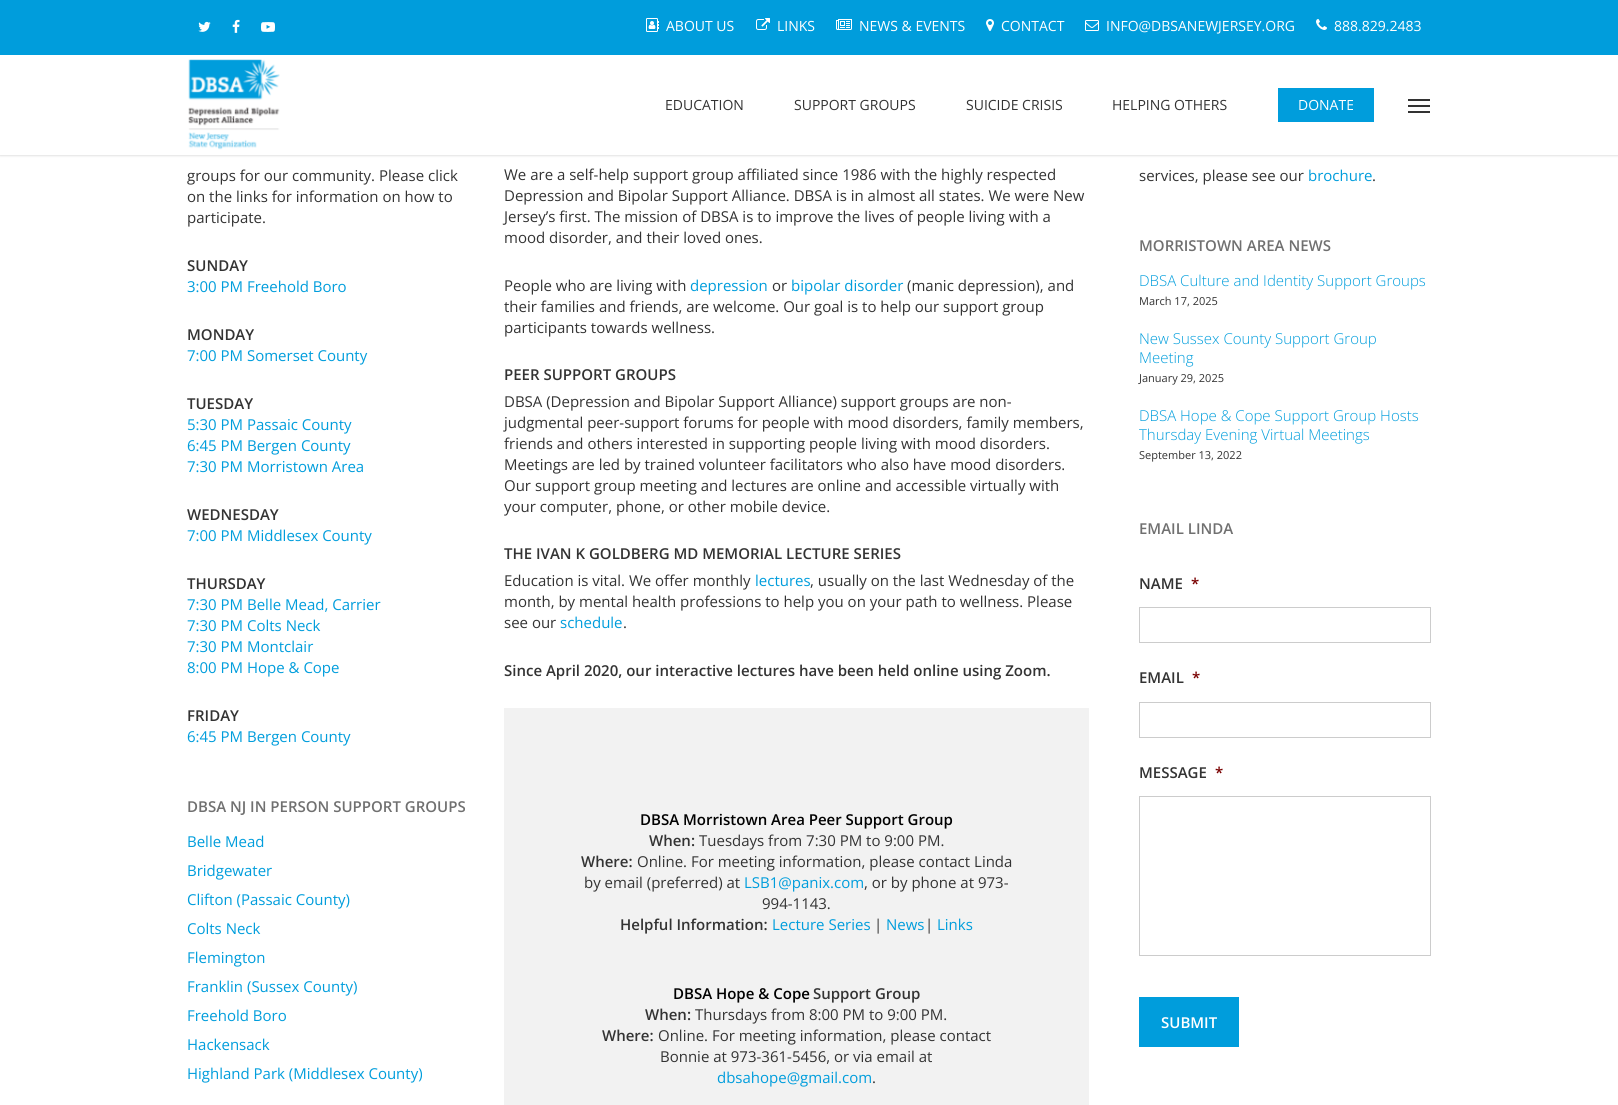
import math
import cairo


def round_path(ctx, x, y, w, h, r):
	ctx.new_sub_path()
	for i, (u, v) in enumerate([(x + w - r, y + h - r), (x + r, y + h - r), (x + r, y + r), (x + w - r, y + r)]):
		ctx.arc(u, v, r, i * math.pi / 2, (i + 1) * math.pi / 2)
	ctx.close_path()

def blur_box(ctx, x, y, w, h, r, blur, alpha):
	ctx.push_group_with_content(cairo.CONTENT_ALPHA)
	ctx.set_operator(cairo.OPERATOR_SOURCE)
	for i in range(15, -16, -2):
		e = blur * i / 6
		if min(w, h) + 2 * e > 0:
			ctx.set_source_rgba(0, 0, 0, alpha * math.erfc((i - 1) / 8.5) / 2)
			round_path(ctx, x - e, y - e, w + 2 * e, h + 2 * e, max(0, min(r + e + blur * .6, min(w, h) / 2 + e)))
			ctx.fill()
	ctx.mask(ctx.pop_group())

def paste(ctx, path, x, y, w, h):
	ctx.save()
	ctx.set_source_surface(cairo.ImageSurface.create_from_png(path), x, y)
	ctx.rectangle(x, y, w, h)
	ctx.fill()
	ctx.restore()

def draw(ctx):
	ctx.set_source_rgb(1, 1, 1)
	ctx.paint()
	ctx.set_source_rgb(0, 0, 0)
	blur_box(ctx, 0, 0, 1618, 155, 0, 1.5, 0.22)
	ctx.set_source_rgb(1, 1, 1)
	ctx.rectangle(0, 55, 1618, 100)
	ctx.fill()
	ctx.set_source_rgb(0, 0.616, 0.863)
	ctx.rectangle(0, 0, 1618, 55)
	ctx.fill()
	paste(ctx, 'media/1.png', 198, 21, 13, 11)
	paste(ctx, 'media/2.png', 232, 19, 8, 14)
	paste(ctx, 'media/3.png', 261, 22, 14, 10)
	paste(ctx, 'media/4.png', 646, 18, 13, 14)
	ctx.select_font_face('Open Sans')
	ctx.set_font_size(14)
	ctx.set_source_rgb(1, 1, 1)
	ctx.move_to(666, 31)
	ctx.show_text('ABOUT US')
	paste(ctx, 'media/5.png', 756, 18, 14, 12)
	ctx.move_to(777, 31)
	ctx.show_text('LINKS')
	paste(ctx, 'media/6.png', 836, 19, 16, 11)
	ctx.move_to(859, 31)
	ctx.show_text('NEWS & EVENTS')
	paste(ctx, 'media/7.png', 986, 19, 8, 12)
	ctx.move_to(1001, 31)
	ctx.show_text('CONTACT')
	paste(ctx, 'media/8.png', 1085, 20, 14, 11)
	ctx.move_to(1106, 31)
	ctx.show_text('INFO@DBSANEWJERSEY.ORG')
	paste(ctx, 'media/9.png', 1316, 19, 11, 11)
	ctx.move_to(1334, 31)
	ctx.show_text('888.829.2483')
	paste(ctx, 'media/10.png', 188, 59, 92, 91)
	ctx.set_source_rgb(0.2, 0.2, 0.2)
	for x, y, s in [
		(665, 110, 'EDUCATION'),
		(794, 110, 'SUPPORT GROUPS'),
		(966, 110, 'SUICIDE CRISIS'),
		(1112, 110, 'HELPING OTHERS'),
	]:
		ctx.move_to(x, y)
		ctx.show_text(s)
	ctx.set_source_rgb(0, 0.616, 0.863)
	ctx.rectangle(1278, 88, 96, 34)
	ctx.fill()
	ctx.set_source_rgb(1, 1, 1)
	ctx.move_to(1298, 110)
	ctx.show_text('DONATE')
	ctx.set_source_rgb(0.2, 0.2, 0.2)
	ctx.rectangle(1408, 99, 22, 2)
	ctx.rectangle(1408, 111, 22, 2)
	ctx.rectangle(1408, 105, 22, 2)
	ctx.fill()
	ctx.set_font_size(15)
	for x, y, s in [
		(187, 181, 'groups for our community. Please click'),
		(187, 202, 'on the links for information on how to'),
		(187, 223, 'participate.'),
	]:
		ctx.move_to(x, y)
		ctx.show_text(s)
	ctx.select_font_face('Open Sans SemiBold')
	ctx.move_to(187, 271)
	ctx.show_text('SUNDAY')
	ctx.select_font_face('Open Sans')
	ctx.set_source_rgb(0, 0.616, 0.863)
	ctx.move_to(187, 292)
	ctx.show_text('3:00 PM Freehold Boro')
	ctx.select_font_face('Open Sans SemiBold')
	ctx.set_source_rgb(0.2, 0.2, 0.2)
	ctx.move_to(187, 340)
	ctx.show_text('MONDAY')
	ctx.select_font_face('Open Sans')
	ctx.set_source_rgb(0, 0.616, 0.863)
	ctx.move_to(187, 361)
	ctx.show_text('7:00 PM Somerset County')
	ctx.select_font_face('Open Sans SemiBold')
	ctx.set_source_rgb(0.2, 0.2, 0.2)
	ctx.move_to(187, 409)
	ctx.show_text('TUESDAY')
	ctx.select_font_face('Open Sans')
	ctx.set_source_rgb(0, 0.616, 0.863)
	for x, y, s in [
		(187, 430, '5:30 PM Passaic County'),
		(187, 451, '6:45 PM Bergen County'),
		(187, 472, '7:30 PM Morristown Area'),
	]:
		ctx.move_to(x, y)
		ctx.show_text(s)
	ctx.select_font_face('Open Sans SemiBold')
	ctx.set_source_rgb(0.2, 0.2, 0.2)
	ctx.move_to(187, 520)
	ctx.show_text('WEDNESDAY')
	ctx.select_font_face('Open Sans')
	ctx.set_source_rgb(0, 0.616, 0.863)
	ctx.move_to(187, 541)
	ctx.show_text('7:00 PM Middlesex County')
	ctx.select_font_face('Open Sans SemiBold')
	ctx.set_source_rgb(0.2, 0.2, 0.2)
	ctx.move_to(187, 589)
	ctx.show_text('THURSDAY')
	ctx.select_font_face('Open Sans')
	ctx.set_source_rgb(0, 0.616, 0.863)
	for x, y, s in [
		(187, 610, '7:30 PM Belle Mead, Carrier'),
		(187, 631, '7:30 PM Colts Neck'),
		(187, 652, '7:30 PM Montclair'),
		(187, 673, '8:00 PM Hope & Cope'),
	]:
		ctx.move_to(x, y)
		ctx.show_text(s)
	ctx.select_font_face('Open Sans SemiBold')
	ctx.set_source_rgb(0.2, 0.2, 0.2)
	ctx.move_to(187, 721)
	ctx.show_text('FRIDAY')
	ctx.select_font_face('Open Sans')
	ctx.set_source_rgb(0, 0.616, 0.863)
	ctx.move_to(187, 742)
	ctx.show_text('6:45 PM Bergen County')
	ctx.select_font_face('Open Sans SemiBold')
	ctx.set_source_rgb(0.439, 0.439, 0.439)
	ctx.move_to(187, 812)
	ctx.show_text('DBSA NJ IN PERSON SUPPORT GROUPS')
	ctx.select_font_face('Open Sans')
	ctx.set_source_rgb(0, 0.616, 0.863)
	for x, y, s in [
		(187, 847, 'Belle Mead'),
		(187, 876, 'Bridgewater'),
		(187, 905, 'Clifton (Passaic County)'),
		(187, 934, 'Colts Neck'),
		(187, 963, 'Flemington'),
		(187, 992, 'Franklin (Sussex County)'),
		(187, 1021, 'Freehold Boro'),
		(187, 1050, 'Hackensack'),
		(187, 1079, 'Highland Park (Middlesex County)'),
	]:
		ctx.move_to(x, y)
		ctx.show_text(s)
	ctx.set_source_rgb(0.2, 0.2, 0.2)
	for x, y, s in [
		(504, 180, 'We are a self-help support group affiliated since 1986 with the highly respected'),
		(504, 201, 'Depression and Bipolar Support Alliance. DBSA is in almost all states. We were New'),
		(504, 222, 'Jersey’s first. The mission of DBSA is to improve the lives of people living with a'),
		(504, 243, 'mood disorder, and their loved ones.'),
		(504, 291, 'People who are living with'),
	]:
		ctx.move_to(x, y)
		ctx.show_text(s)
	ctx.set_source_rgb(0, 0.616, 0.863)
	ctx.move_to(690, 291)
	ctx.show_text('depression')
	ctx.set_source_rgb(0.2, 0.2, 0.2)
	ctx.move_to(772, 291)
	ctx.show_text('or')
	ctx.set_source_rgb(0, 0.616, 0.863)
	ctx.move_to(791, 291)
	ctx.show_text('bipolar disorder')
	ctx.set_source_rgb(0.2, 0.2, 0.2)
	for x, y, s in [
		(907, 291, '(manic depression), and'),
		(504, 312, 'their families and friends, are welcome. Our goal is to help our support group'),
		(504, 333, 'participants towards wellness.'),
	]:
		ctx.move_to(x, y)
		ctx.show_text(s)
	ctx.select_font_face('Open Sans SemiBold')
	ctx.move_to(504, 380)
	ctx.show_text('PEER SUPPORT GROUPS')
	ctx.select_font_face('Open Sans')
	for x, y, s in [
		(504, 407, 'DBSA (Depression and Bipolar Support Alliance) support groups are non-'),
		(504, 428, 'judgmental peer-support forums for people with mood disorders, family members,'),
		(504, 449, 'friends and others interested in supporting people living with mood disorders.'),
		(504, 470, 'Meetings are led by trained volunteer facilitators who also have mood disorders.'),
		(504, 491, 'Our support group meeting and lectures are online and accessible virtually with'),
		(504, 512, 'your computer, phone, or other mobile device.'),
	]:
		ctx.move_to(x, y)
		ctx.show_text(s)
	ctx.select_font_face('Open Sans SemiBold')
	ctx.move_to(504, 559)
	ctx.show_text('THE IVAN K GOLDBERG MD MEMORIAL LECTURE SERIES')
	ctx.select_font_face('Open Sans')
	ctx.move_to(504, 586)
	ctx.show_text('Education is vital. We offer monthly')
	ctx.set_source_rgb(0, 0.616, 0.863)
	ctx.move_to(755, 586)
	ctx.show_text('lectures')
	ctx.set_source_rgb(0.2, 0.2, 0.2)
	for x, y, s in [
		(810, 586, ', usually on the last Wednesday of the'),
		(504, 607, 'month, by mental health professions to help you on your path to wellness. Please'),
		(504, 628, 'see our'),
	]:
		ctx.move_to(x, y)
		ctx.show_text(s)
	ctx.set_source_rgb(0, 0.616, 0.863)
	ctx.move_to(560, 628)
	ctx.show_text('schedule')
	ctx.set_source_rgb(0.2, 0.2, 0.2)
	ctx.move_to(623, 628)
	ctx.show_text('.')
	ctx.select_font_face('Open Sans SemiBold')
	ctx.move_to(504, 676)
	ctx.show_text('Since April 2020, our interactive lectures have been held online using Zoom.')
	ctx.set_source_rgb(0.949, 0.949, 0.949)
	ctx.rectangle(504, 708, 585, 397)
	ctx.fill()
	ctx.set_source_rgb(0, 0, 0)
	ctx.move_to(640, 825)
	ctx.show_text('DBSA Morristown Area Peer Support Group')
	ctx.set_source_rgb(0.2, 0.2, 0.2)
	ctx.move_to(649, 846)
	ctx.show_text('When:')
	ctx.select_font_face('Open Sans')
	ctx.move_to(699, 846)
	ctx.show_text('Tuesdays from 7:30 PM to 9:00 PM.')
	ctx.select_font_face('Open Sans SemiBold')
	ctx.move_to(581, 867)
	ctx.show_text('Where:')
	ctx.select_font_face('Open Sans')
	ctx.move_to(637, 867)
	ctx.show_text('Online. For meeting information, please contact Linda')
	ctx.move_to(584, 888)
	ctx.show_text('by email (preferred) at')
	ctx.set_source_rgb(0, 0.616, 0.863)
	ctx.move_to(744, 888)
	ctx.show_text('LSB1@panix.com')
	ctx.set_source_rgb(0.2, 0.2, 0.2)
	ctx.move_to(864, 888)
	ctx.show_text(', or by phone at 973-')
	ctx.move_to(762, 909)
	ctx.show_text('994-1143.')
	ctx.select_font_face('Open Sans SemiBold')
	ctx.move_to(620, 930)
	ctx.show_text('Helpful Information:')
	ctx.select_font_face('Open Sans')
	ctx.set_source_rgb(0, 0.616, 0.863)
	ctx.move_to(772, 930)
	ctx.show_text('Lecture Series')
	ctx.set_source_rgb(0.2, 0.2, 0.2)
	ctx.move_to(874, 930)
	ctx.show_text('|')
	ctx.set_source_rgb(0, 0.616, 0.863)
	ctx.move_to(886, 930)
	ctx.show_text('News')
	ctx.set_source_rgb(0.2, 0.2, 0.2)
	ctx.move_to(925, 930)
	ctx.show_text('|')
	ctx.set_source_rgb(0, 0.616, 0.863)
	ctx.move_to(937, 930)
	ctx.show_text('Links')
	ctx.select_font_face('Open Sans SemiBold')
	ctx.set_source_rgb(0, 0, 0)
	ctx.move_to(673, 999)
	ctx.show_text('DBSA Hope & Cope')
	ctx.set_source_rgb(0.2, 0.2, 0.2)
	ctx.move_to(813, 999)
	ctx.show_text('Support Group')
	ctx.move_to(645, 1020)
	ctx.show_text('When:')
	ctx.select_font_face('Open Sans')
	ctx.move_to(695, 1020)
	ctx.show_text('Thursdays from 8:00 PM to 9:00 PM.')
	ctx.select_font_face('Open Sans SemiBold')
	ctx.move_to(602, 1041)
	ctx.show_text('Where:')
	ctx.select_font_face('Open Sans')
	ctx.move_to(658, 1041)
	ctx.show_text('Online. For meeting information, please contact')
	ctx.move_to(660, 1062)
	ctx.show_text('Bonnie at 973-361-5456, or via email at')
	ctx.set_source_rgb(0, 0.616, 0.863)
	ctx.move_to(717, 1083)
	ctx.show_text('dbsahope@gmail.com')
	ctx.set_source_rgb(0.2, 0.2, 0.2)
	ctx.move_to(872, 1083)
	ctx.show_text('.')
	ctx.move_to(1139, 181)
	ctx.show_text('services, please see our')
	ctx.set_source_rgb(0, 0.616, 0.863)
	ctx.move_to(1308, 181)
	ctx.show_text('brochure')
	ctx.set_source_rgb(0.2, 0.2, 0.2)
	ctx.move_to(1372, 181)
	ctx.show_text('.')
	ctx.select_font_face('Open Sans SemiBold')
	ctx.set_source_rgb(0.439, 0.439, 0.439)
	ctx.move_to(1139, 251)
	ctx.show_text('MORRISTOWN AREA NEWS')
	ctx.select_font_face('Open Sans Light')
	ctx.set_source_rgb(0, 0.616, 0.863)
	ctx.move_to(1139, 286)
	ctx.show_text('DBSA Culture and Identity Support Groups')
	ctx.select_font_face('Open Sans')
	ctx.set_font_size(11)
	ctx.set_source_rgb(0.2, 0.2, 0.2)
	ctx.move_to(1139, 305)
	ctx.show_text('March 17, 2025')
	ctx.select_font_face('Open Sans Light')
	ctx.set_font_size(15)
	ctx.set_source_rgb(0, 0.616, 0.863)
	ctx.move_to(1139, 344)
	ctx.show_text('New Sussex County Support Group')
	ctx.move_to(1139, 363)
	ctx.show_text('Meeting')
	ctx.select_font_face('Open Sans')
	ctx.set_font_size(11)
	ctx.set_source_rgb(0.2, 0.2, 0.2)
	ctx.move_to(1139, 382)
	ctx.show_text('January 29, 2025')
	ctx.select_font_face('Open Sans Light')
	ctx.set_font_size(15)
	ctx.set_source_rgb(0, 0.616, 0.863)
	ctx.move_to(1139, 421)
	ctx.show_text('DBSA Hope & Cope Support Group Hosts')
	ctx.move_to(1139, 440)
	ctx.show_text('Thursday Evening Virtual Meetings')
	ctx.select_font_face('Open Sans')
	ctx.set_font_size(11)
	ctx.set_source_rgb(0.2, 0.2, 0.2)
	ctx.move_to(1139, 459)
	ctx.show_text('September 13, 2022')
	ctx.select_font_face('Open Sans SemiBold')
	ctx.set_font_size(15)
	ctx.set_source_rgb(0.439, 0.439, 0.439)
	ctx.move_to(1139, 534)
	ctx.show_text('EMAIL LINDA')
	ctx.set_source_rgb(0.2, 0.2, 0.2)
	ctx.move_to(1139, 589)
	ctx.show_text('NAME')
	ctx.set_source_rgb(0.475, 0, 0)
	ctx.move_to(1191, 589)
	ctx.show_text('*')
	ctx.rectangle(1139.5, 607.5, 291, 35)
	ctx.set_source_rgb(0.8, 0.8, 0.8)
	ctx.set_line_width(1)
	ctx.stroke()
	ctx.set_source_rgb(0.2, 0.2, 0.2)
	ctx.move_to(1139, 683)
	ctx.show_text('EMAIL')
	ctx.set_source_rgb(0.475, 0, 0)
	ctx.move_to(1192, 683)
	ctx.show_text('*')
	ctx.rectangle(1139.5, 702.5, 291, 35)
	ctx.set_source_rgb(0.8, 0.8, 0.8)
	ctx.stroke()
	ctx.set_source_rgb(0.2, 0.2, 0.2)
	ctx.move_to(1139, 778)
	ctx.show_text('MESSAGE')
	ctx.set_source_rgb(0.475, 0, 0)
	ctx.move_to(1215, 778)
	ctx.show_text('*')
	ctx.rectangle(1139.5, 796.5, 291, 159)
	ctx.set_source_rgb(0.8, 0.8, 0.8)
	ctx.stroke()
	ctx.set_source_rgb(0, 0.616, 0.863)
	ctx.rectangle(1139, 997, 100, 50)
	ctx.fill()
	ctx.set_source_rgb(1, 1, 1)
	ctx.move_to(1161, 1028)
	ctx.show_text('SUBMIT')


surface = cairo.ImageSurface(cairo.FORMAT_RGB24, 1618, 1105)
ctx = cairo.Context(surface)
options = cairo.FontOptions()
options.set_hint_metrics(cairo.HINT_METRICS_OFF)
options.set_hint_style(cairo.HINT_STYLE_NONE)
ctx.set_font_options(options)
ctx.set_miter_limit(4)
draw(ctx)
surface.write_to_png('image.png')
